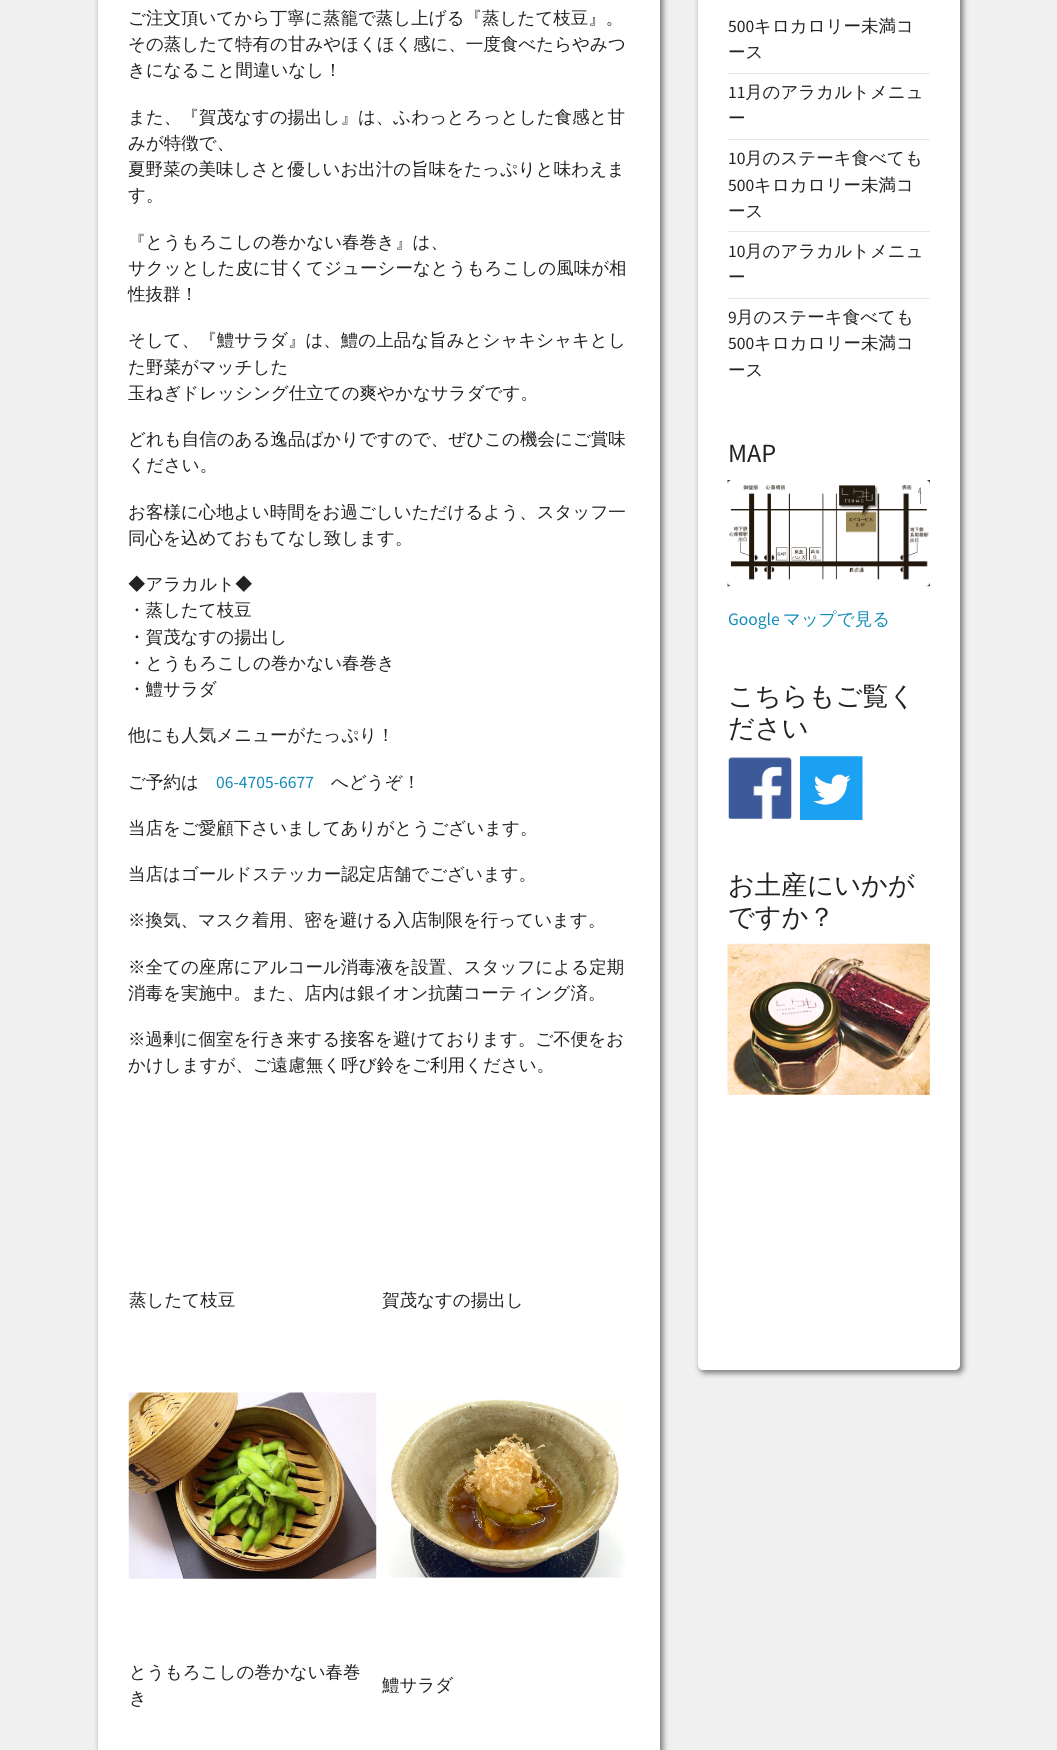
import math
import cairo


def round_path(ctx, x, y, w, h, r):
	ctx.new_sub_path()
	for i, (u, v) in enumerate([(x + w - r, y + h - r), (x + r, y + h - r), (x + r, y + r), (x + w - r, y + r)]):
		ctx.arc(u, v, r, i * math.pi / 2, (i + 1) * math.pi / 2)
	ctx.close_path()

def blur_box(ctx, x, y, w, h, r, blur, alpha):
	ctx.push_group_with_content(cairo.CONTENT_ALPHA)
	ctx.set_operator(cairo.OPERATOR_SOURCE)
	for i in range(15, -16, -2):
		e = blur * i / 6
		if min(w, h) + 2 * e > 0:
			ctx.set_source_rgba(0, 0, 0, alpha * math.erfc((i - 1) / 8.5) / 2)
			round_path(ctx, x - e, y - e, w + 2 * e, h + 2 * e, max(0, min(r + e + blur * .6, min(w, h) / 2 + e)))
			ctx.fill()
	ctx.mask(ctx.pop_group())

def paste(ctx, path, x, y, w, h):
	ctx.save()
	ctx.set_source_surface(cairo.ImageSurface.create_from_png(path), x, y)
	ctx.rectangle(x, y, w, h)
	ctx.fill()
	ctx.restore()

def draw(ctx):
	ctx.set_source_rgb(0.941, 0.941, 0.941)
	ctx.paint()
	ctx.set_source_rgb(0, 0, 0)
	blur_box(ctx, 100, -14, 563, 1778, 5, 3, 0.5)
	ctx.set_source_rgb(1, 1, 1)
	ctx.rectangle(98, 0, 562, 1750)
	ctx.fill()
	ctx.select_font_face('WenQuanYi Zen Hei Medium')
	ctx.set_font_size(17.5)
	ctx.set_source_rgb(0.133, 0.133, 0.133)
	for x, y, s in [
		(128, 24, 'ご注文頂いてから丁寧に蒸籠で蒸し上げる『蒸したて枝豆』。'),
		(128, 50, 'その蒸したて特有の甘みやほくほく感に、一度食べたらやみつ'),
		(128, 76, 'きになること間違いなし！'),
		(128, 123, 'また、『賀茂なすの揚出し』は、ふわっとろっとした食感と甘'),
		(128, 149, 'みが特徴で、'),
		(128, 175, '夏野菜の美味しさと優しいお出汁の旨味をたっぷりと味わえま'),
		(128, 201, 'す。'),
		(128, 248, '『とうもろこしの巻かない春巻き』は、'),
		(128, 274, 'サクッとした皮に甘くてジューシーなとうもろこしの風味が相'),
		(128, 300, '性抜群！'),
		(128, 346, 'そして、『鱧サラダ』は、鱧の上品な旨みとシャキシャキとし'),
		(128, 373, 'た野菜がマッチした'),
		(128, 399, '玉ねぎドレッシング仕立ての爽やかなサラダです。'),
		(128, 445, 'どれも自信のある逸品ばかりですので、ぜひこの機会にご賞味'),
		(128, 471, 'ください。'),
		(128, 518, 'お客様に心地よい時間をお過ごしいただけるよう、スタッフ一'),
		(128, 544, '同心を込めておもてなし致します。'),
		(128, 590, '◆アラカルト◆'),
		(128, 616, '・蒸したて枝豆'),
		(128, 643, '・賀茂なすの揚出し'),
		(128, 669, '・とうもろこしの巻かない春巻き'),
		(128, 695, '・鱧サラダ'),
		(128, 741, '他にも人気メニューがたっぷり！'),
		(128, 788, 'ご予約は'),
	]:
		ctx.move_to(x, y)
		ctx.show_text(s)
	ctx.select_font_face('Source Sans Pro')
	ctx.set_source_rgb(0.082, 0.549, 0.729)
	ctx.move_to(216, 788)
	ctx.show_text('06-4705-6677')
	ctx.select_font_face('WenQuanYi Zen Hei Medium')
	ctx.set_source_rgb(0.133, 0.133, 0.133)
	for x, y, s in [
		(331, 788, 'へどうぞ！'),
		(128, 834, '当店をご愛顧下さいましてありがとうございます。'),
		(128, 880, '当店はゴールドステッカー認定店舗でございます。'),
		(128, 926, '※換気、マスク着用、密を避ける入店制限を行っています。'),
		(128, 973, '※全ての座席にアルコール消毒液を設置、スタッフによる定期'),
		(128, 999, '消毒を実施中。また、店内は銀イオン抗菌コーティング済。'),
		(128, 1045, '※過剰に個室を行き来する接客を避けております。ご不便をお'),
		(128, 1071, 'かけしますが、ご遠慮無く呼び鈴をご利用ください。'),
		(129, 1306, '蒸したて枝豆'),
		(382, 1306, '賀茂なすの揚出し'),
	]:
		ctx.move_to(x, y)
		ctx.show_text(s)
	paste(ctx, 'media/1.png', 128, 1392, 249, 187)
	paste(ctx, 'media/2.png', 386, 1399, 240, 179)
	for x, y, s in [
		(129, 1678, 'とうもろこしの巻かない春巻'),
		(129, 1704, 'き'),
		(382, 1691, '鱧サラダ'),
	]:
		ctx.move_to(x, y)
		ctx.show_text(s)
	ctx.set_source_rgb(0, 0, 0)
	blur_box(ctx, 700, -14, 263, 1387, 5, 3, 0.5)
	ctx.set_source_rgb(1, 1, 1)
	round_path(ctx, 698, -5, 262, 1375, 5)
	ctx.fill()
	ctx.set_source_rgb(0.902, 0.902, 0.902)
	ctx.rectangle(728, 73, 202, 1)
	ctx.fill()
	ctx.select_font_face('Source Sans Pro')
	ctx.set_source_rgb(0.133, 0.133, 0.133)
	ctx.move_to(728, 32)
	ctx.show_text('500')
	ctx.select_font_face('WenQuanYi Zen Hei Medium')
	ctx.move_to(754, 32)
	ctx.show_text('キロカロリー未満コ')
	ctx.move_to(728, 58)
	ctx.show_text('ース')
	ctx.set_source_rgb(0.902, 0.902, 0.902)
	ctx.rectangle(728, 139, 202, 1)
	ctx.fill()
	ctx.select_font_face('Source Sans Pro')
	ctx.set_source_rgb(0.133, 0.133, 0.133)
	ctx.move_to(728, 98)
	ctx.show_text('11')
	ctx.select_font_face('WenQuanYi Zen Hei Medium')
	ctx.move_to(745, 98)
	ctx.show_text('月のアラカルトメニュ')
	ctx.move_to(728, 124)
	ctx.show_text('ー')
	ctx.set_source_rgb(0.902, 0.902, 0.902)
	ctx.rectangle(728, 231, 202, 1)
	ctx.fill()
	ctx.select_font_face('Source Sans Pro')
	ctx.set_source_rgb(0.133, 0.133, 0.133)
	ctx.move_to(728, 164)
	ctx.show_text('10')
	ctx.select_font_face('WenQuanYi Zen Hei Medium')
	ctx.move_to(745, 164)
	ctx.show_text('月のステーキ食べても')
	ctx.select_font_face('Source Sans Pro')
	ctx.move_to(728, 191)
	ctx.show_text('500')
	ctx.select_font_face('WenQuanYi Zen Hei Medium')
	ctx.move_to(754, 191)
	ctx.show_text('キロカロリー未満コ')
	ctx.move_to(728, 217)
	ctx.show_text('ース')
	ctx.set_source_rgb(0.902, 0.902, 0.902)
	ctx.rectangle(728, 298, 202, 1)
	ctx.fill()
	ctx.select_font_face('Source Sans Pro')
	ctx.set_source_rgb(0.133, 0.133, 0.133)
	ctx.move_to(728, 257)
	ctx.show_text('10')
	ctx.select_font_face('WenQuanYi Zen Hei Medium')
	ctx.move_to(745, 257)
	ctx.show_text('月のアラカルトメニュ')
	ctx.move_to(728, 283)
	ctx.show_text('ー')
	ctx.select_font_face('Source Sans Pro')
	ctx.move_to(728, 323)
	ctx.show_text('9')
	ctx.select_font_face('WenQuanYi Zen Hei Medium')
	ctx.move_to(736, 323)
	ctx.show_text('月のステーキ食べても')
	ctx.select_font_face('Source Sans Pro')
	ctx.move_to(728, 349)
	ctx.show_text('500')
	ctx.select_font_face('WenQuanYi Zen Hei Medium')
	ctx.move_to(754, 349)
	ctx.show_text('キロカロリー未満コ')
	ctx.move_to(728, 376)
	ctx.show_text('ース')
	ctx.select_font_face('Source Sans Pro')
	ctx.set_font_size(26.25)
	ctx.move_to(728, 462)
	ctx.show_text('MAP')
	paste(ctx, 'media/3.png', 727, 480, 203, 107)
	ctx.set_font_size(17.5)
	ctx.set_source_rgb(0.082, 0.549, 0.729)
	ctx.move_to(728, 625)
	ctx.show_text('Google')
	ctx.select_font_face('WenQuanYi Zen Hei Medium')
	ctx.move_to(783, 625)
	ctx.show_text('マップで見る')
	ctx.set_font_size(26.25)
	ctx.set_source_rgb(0.133, 0.133, 0.133)
	ctx.move_to(728, 705)
	ctx.show_text('こちらもご覧く')
	ctx.move_to(728, 737)
	ctx.show_text('ださい')
	paste(ctx, 'media/4.png', 728, 757, 64, 62)
	paste(ctx, 'media/5.png', 800, 756, 63, 64)
	ctx.move_to(728, 894)
	ctx.show_text('お土産にいかが')
	ctx.move_to(728, 926)
	ctx.show_text('ですか？')
	paste(ctx, 'media/6.png', 727, 943, 203, 152)


surface = cairo.ImageSurface(cairo.FORMAT_RGB24, 1057, 1750)
ctx = cairo.Context(surface)
options = cairo.FontOptions()
options.set_hint_metrics(cairo.HINT_METRICS_OFF)
options.set_hint_style(cairo.HINT_STYLE_NONE)
ctx.set_font_options(options)
ctx.set_miter_limit(4)
draw(ctx)
surface.write_to_png('image.png')
